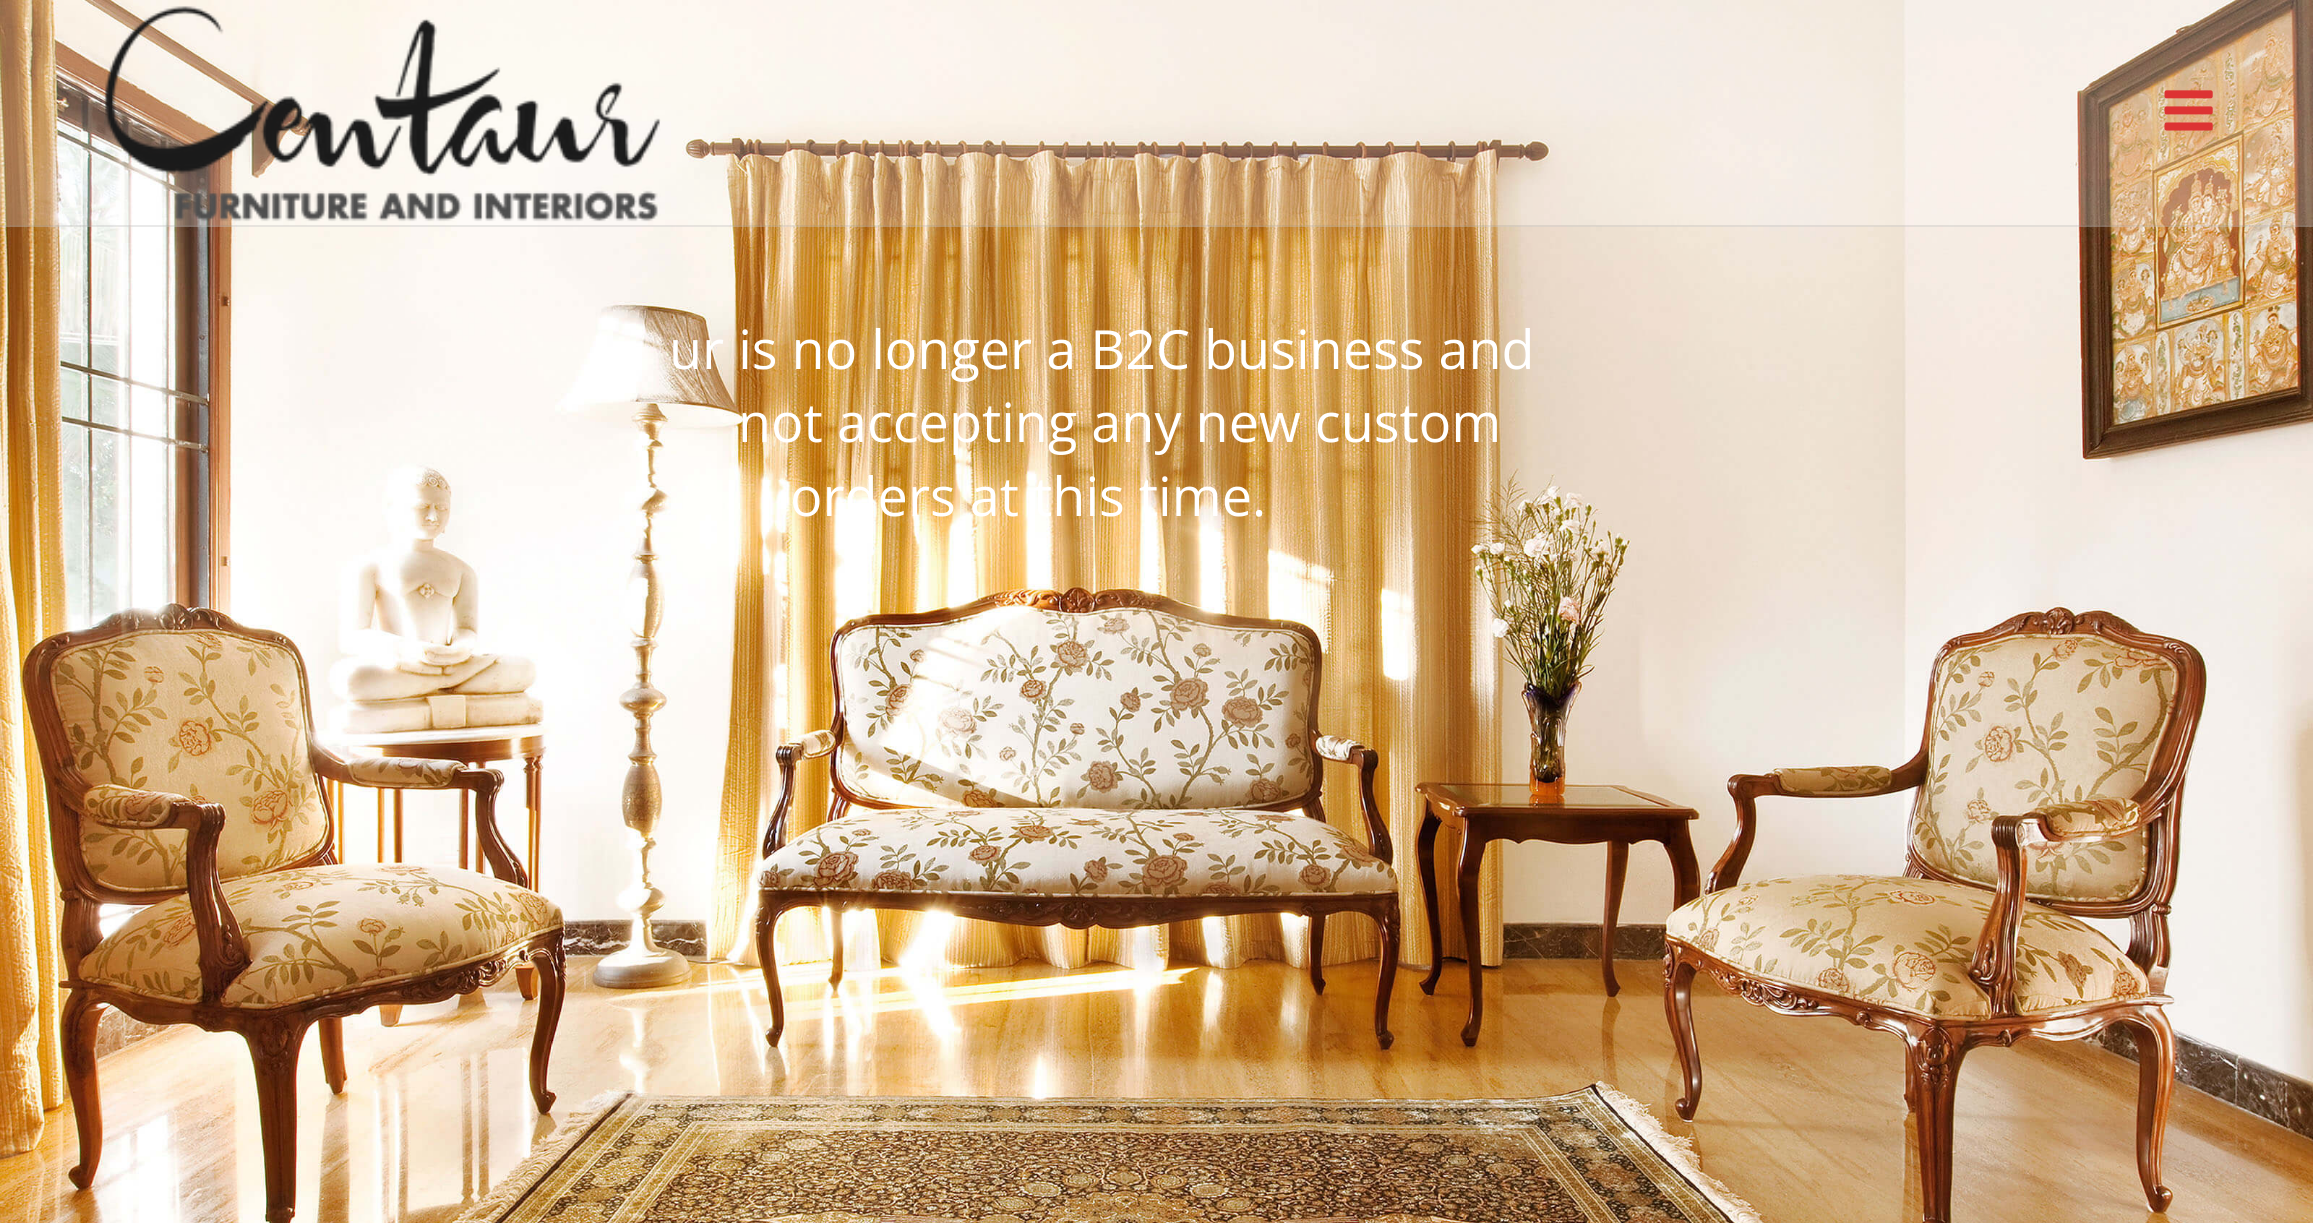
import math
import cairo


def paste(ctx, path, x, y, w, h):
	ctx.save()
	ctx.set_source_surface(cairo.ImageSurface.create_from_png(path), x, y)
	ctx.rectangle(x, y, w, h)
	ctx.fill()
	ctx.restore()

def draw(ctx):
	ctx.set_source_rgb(1, 1, 1)
	ctx.paint()
	paste(ctx, 'media/3.png', 0, 0, 2313, 1223)
	ctx.set_source_rgba(1, 1, 1, 0.25)
	ctx.rectangle(0, 0, 2313, 227)
	ctx.fill()
	ctx.set_source_rgba(0.58, 0.58, 0.58, 0.2)
	ctx.rectangle(0, 225, 2313, 2)
	ctx.fill()
	paste(ctx, 'media/1.png', 104, 6, 557, 216)
	paste(ctx, 'media/2.png', 2164, 90, 49, 41)
	ctx.select_font_face('Open Sans')
	ctx.set_font_size(54)
	ctx.set_source_rgb(1, 1, 1)
	for x, y, s in [
		(669, 369, 'ur is no longer a B2C business and'),
		(738, 442, 'not accepting any new custom'),
		(790, 516, 'orders at this time.'),
	]:
		ctx.move_to(x, y)
		ctx.show_text(s)


surface = cairo.ImageSurface(cairo.FORMAT_RGB24, 2313, 1223)
ctx = cairo.Context(surface)
options = cairo.FontOptions()
options.set_hint_metrics(cairo.HINT_METRICS_OFF)
options.set_hint_style(cairo.HINT_STYLE_NONE)
ctx.set_font_options(options)
ctx.set_miter_limit(4)
draw(ctx)
surface.write_to_png('image.png')
